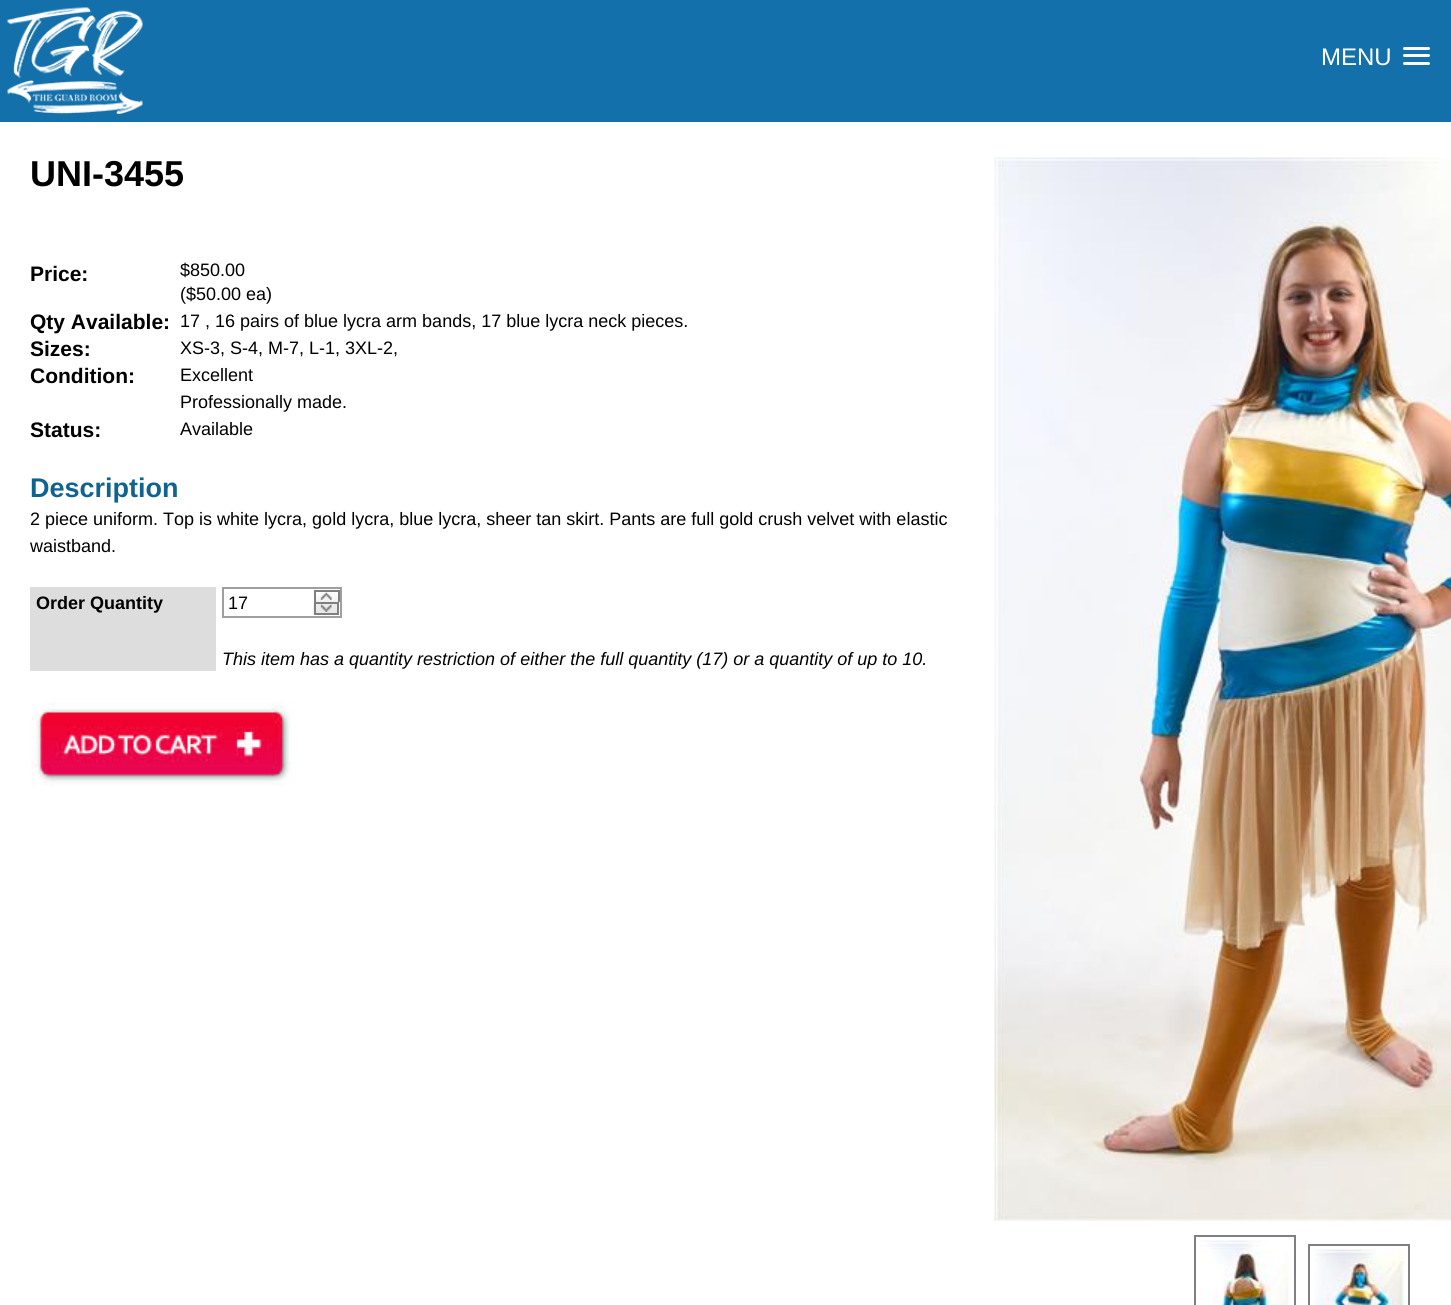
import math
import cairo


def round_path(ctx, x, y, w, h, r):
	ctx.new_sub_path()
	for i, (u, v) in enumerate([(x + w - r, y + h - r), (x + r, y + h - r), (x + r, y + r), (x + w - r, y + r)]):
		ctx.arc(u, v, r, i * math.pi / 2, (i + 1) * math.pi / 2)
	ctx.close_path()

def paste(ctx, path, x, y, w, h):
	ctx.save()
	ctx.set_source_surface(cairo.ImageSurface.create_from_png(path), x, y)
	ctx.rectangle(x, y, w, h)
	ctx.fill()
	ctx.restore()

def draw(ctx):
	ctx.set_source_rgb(1, 1, 1)
	ctx.paint()
	ctx.set_source_rgb(0.075, 0.439, 0.671)
	ctx.rectangle(0, 0, 1451, 122)
	ctx.fill()
	paste(ctx, 'media/1.png', 7, 7, 136, 107)
	ctx.select_font_face('Liberation Sans')
	ctx.set_font_size(24)
	ctx.set_source_rgb(1, 1, 1)
	ctx.move_to(1321, 65)
	ctx.show_text('MENU')
	round_path(ctx, 1403, 47, 27, 3, 1.5)
	ctx.fill()
	round_path(ctx, 1403, 54, 27, 3, 1.5)
	ctx.fill()
	round_path(ctx, 1403, 62, 27, 3, 1.5)
	ctx.fill()
	ctx.select_font_face('Liberation Sans', cairo.FONT_SLANT_NORMAL, cairo.FONT_WEIGHT_BOLD)
	ctx.set_font_size(36)
	ctx.set_source_rgb(0, 0, 0)
	ctx.move_to(30, 186)
	ctx.show_text('UNI-3455')
	paste(ctx, 'media/2.png', 994, 157, 457, 1064)
	ctx.rectangle(1195, 1236, 100, 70)
	ctx.set_source_rgb(0.502, 0.502, 0.502)
	ctx.stroke()
	paste(ctx, 'media/3.png', 1200, 1240, 90, 65)
	ctx.rectangle(1309, 1245, 100, 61)
	ctx.stroke()
	paste(ctx, 'media/4.png', 1314, 1249, 90, 56)
	ctx.set_font_size(21)
	ctx.set_source_rgb(0, 0, 0)
	ctx.move_to(30, 281)
	ctx.show_text('Price:')
	ctx.select_font_face('Liberation Sans')
	ctx.set_font_size(18)
	ctx.move_to(180, 276)
	ctx.show_text('$850.00')
	ctx.move_to(180, 300)
	ctx.show_text('($50.00 ea)')
	ctx.select_font_face('Liberation Sans', cairo.FONT_SLANT_NORMAL, cairo.FONT_WEIGHT_BOLD)
	ctx.set_font_size(21)
	ctx.move_to(30, 329)
	ctx.show_text('Qty Available:')
	ctx.select_font_face('Liberation Sans')
	ctx.set_font_size(18)
	ctx.move_to(180, 327)
	ctx.show_text('17 , 16 pairs of blue lycra arm bands, 17 blue lycra neck pieces.')
	ctx.select_font_face('Liberation Sans', cairo.FONT_SLANT_NORMAL, cairo.FONT_WEIGHT_BOLD)
	ctx.set_font_size(21)
	ctx.move_to(30, 356)
	ctx.show_text('Sizes:')
	ctx.select_font_face('Liberation Sans')
	ctx.set_font_size(18)
	ctx.move_to(180, 354)
	ctx.show_text('XS-3, S-4, M-7, L-1, 3XL-2,')
	ctx.select_font_face('Liberation Sans', cairo.FONT_SLANT_NORMAL, cairo.FONT_WEIGHT_BOLD)
	ctx.set_font_size(21)
	ctx.move_to(30, 383)
	ctx.show_text('Condition:')
	ctx.select_font_face('Liberation Sans')
	ctx.set_font_size(18)
	ctx.move_to(180, 381)
	ctx.show_text('Excellent')
	ctx.move_to(180, 408)
	ctx.show_text('Professionally made.')
	ctx.select_font_face('Liberation Sans', cairo.FONT_SLANT_NORMAL, cairo.FONT_WEIGHT_BOLD)
	ctx.set_font_size(21)
	ctx.move_to(30, 437)
	ctx.show_text('Status:')
	ctx.select_font_face('Liberation Sans')
	ctx.set_font_size(18)
	ctx.move_to(180, 435)
	ctx.show_text('Available')
	ctx.select_font_face('Liberation Sans', cairo.FONT_SLANT_NORMAL, cairo.FONT_WEIGHT_BOLD)
	ctx.set_font_size(27)
	ctx.set_source_rgb(0.067, 0.388, 0.561)
	ctx.move_to(30, 497)
	ctx.show_text('Description')
	ctx.select_font_face('Liberation Sans')
	ctx.set_font_size(18)
	ctx.set_source_rgb(0, 0, 0)
	ctx.move_to(30, 525)
	ctx.show_text('2 piece uniform. Top is white lycra, gold lycra, blue lycra, sheer tan skirt. Pants are full gold crush velvet with elastic')
	ctx.move_to(30, 552)
	ctx.show_text('waistband.')
	ctx.set_source_rgb(0.867, 0.867, 0.867)
	ctx.rectangle(30, 587, 186, 84)
	ctx.fill()
	ctx.select_font_face('Liberation Sans', cairo.FONT_SLANT_NORMAL, cairo.FONT_WEIGHT_BOLD)
	ctx.set_source_rgb(0, 0, 0)
	ctx.move_to(36, 609)
	ctx.show_text('Order Quantity')
	ctx.rectangle(223, 588, 118, 29)
	ctx.set_source_rgb(0.624, 0.624, 0.624)
	ctx.stroke()
	ctx.select_font_face('Liberation Sans')
	ctx.set_source_rgb(0, 0, 0)
	ctx.move_to(228, 609)
	ctx.show_text('17')
	ctx.set_source_rgb(0.941, 0.941, 0.941)
	ctx.rectangle(316, 601, 22, 1)
	ctx.fill()
	paste(ctx, 'media/5.png', 313, 591, 25, 10)
	ctx.set_source_rgb(0.498, 0.498, 0.498)
	ctx.rectangle(314, 590, 25, 2)
	ctx.rectangle(338, 590, 2, 12)
	ctx.rectangle(314, 590, 2, 12)
	ctx.fill()
	paste(ctx, 'media/6.png', 320, 592, 12, 8)
	paste(ctx, 'media/7.png', 313, 603, 24, 12)
	ctx.rectangle(315, 603, 23, 11)
	ctx.stroke()
	paste(ctx, 'media/8.png', 320, 604, 12, 8)
	ctx.select_font_face('Liberation Sans', cairo.FONT_SLANT_ITALIC)
	ctx.set_source_rgb(0, 0, 0)
	ctx.move_to(222, 665)
	ctx.show_text('This item has a quantity restriction of either the full quantity (17) or a quantity of up to 10.')
	paste(ctx, 'media/9.png', 31, 702, 264, 84)


surface = cairo.ImageSurface(cairo.FORMAT_RGB24, 1451, 1305)
ctx = cairo.Context(surface)
options = cairo.FontOptions()
options.set_hint_metrics(cairo.HINT_METRICS_OFF)
options.set_hint_style(cairo.HINT_STYLE_NONE)
ctx.set_font_options(options)
ctx.set_miter_limit(4)
draw(ctx)
surface.write_to_png('image.png')
